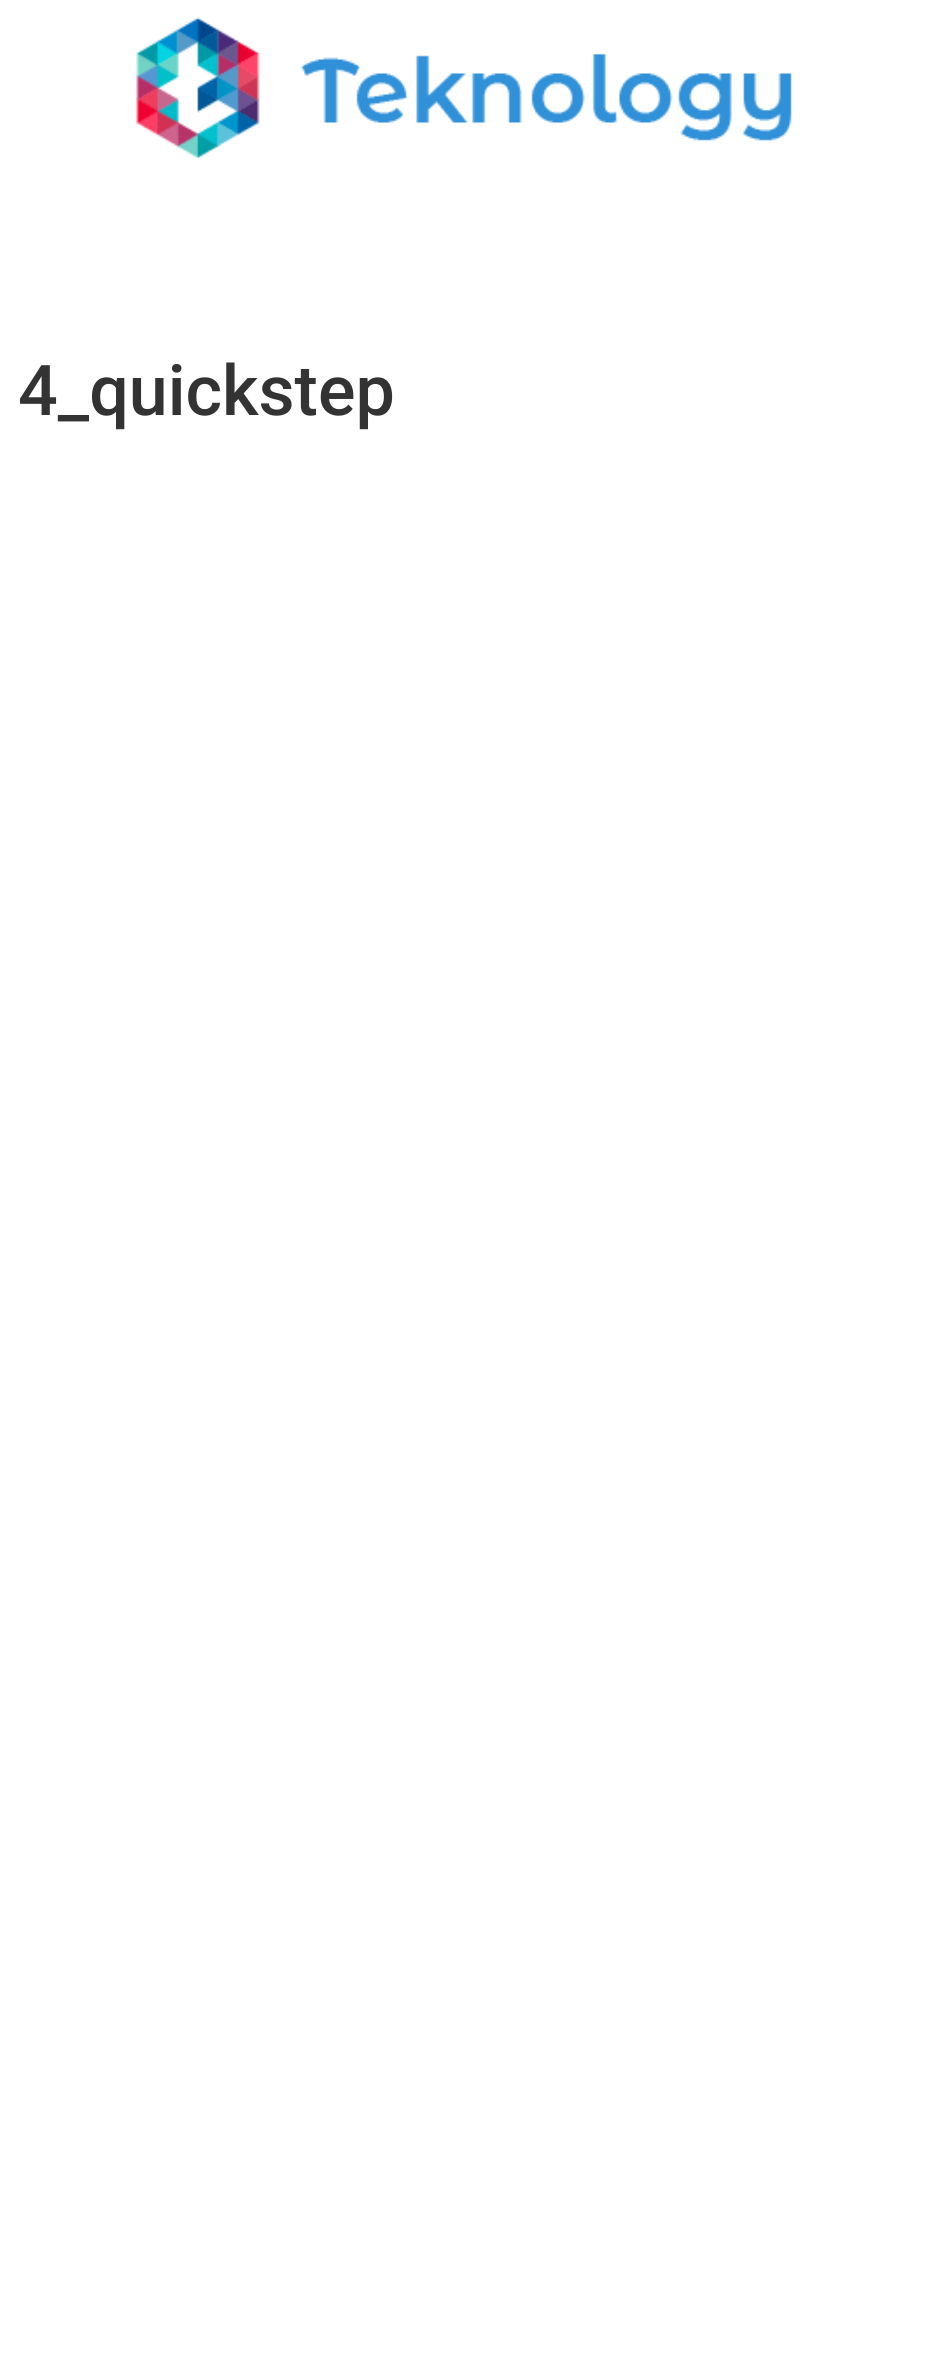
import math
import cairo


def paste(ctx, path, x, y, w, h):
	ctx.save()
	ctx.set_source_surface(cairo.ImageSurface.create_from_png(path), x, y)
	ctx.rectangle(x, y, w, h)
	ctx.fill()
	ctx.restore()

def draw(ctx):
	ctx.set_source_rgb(1, 1, 1)
	ctx.paint()
	paste(ctx, 'media/1.png', 136, 17, 656, 141)
	ctx.select_font_face('Roboto Medium')
	ctx.set_font_size(70)
	ctx.set_source_rgb(0.2, 0.2, 0.2)
	ctx.move_to(18, 415)
	ctx.show_text('4_quickstep')


surface = cairo.ImageSurface(cairo.FORMAT_RGB24, 929, 2364)
ctx = cairo.Context(surface)
options = cairo.FontOptions()
options.set_hint_metrics(cairo.HINT_METRICS_OFF)
options.set_hint_style(cairo.HINT_STYLE_NONE)
ctx.set_font_options(options)
ctx.set_miter_limit(4)
draw(ctx)
surface.write_to_png('image.png')
